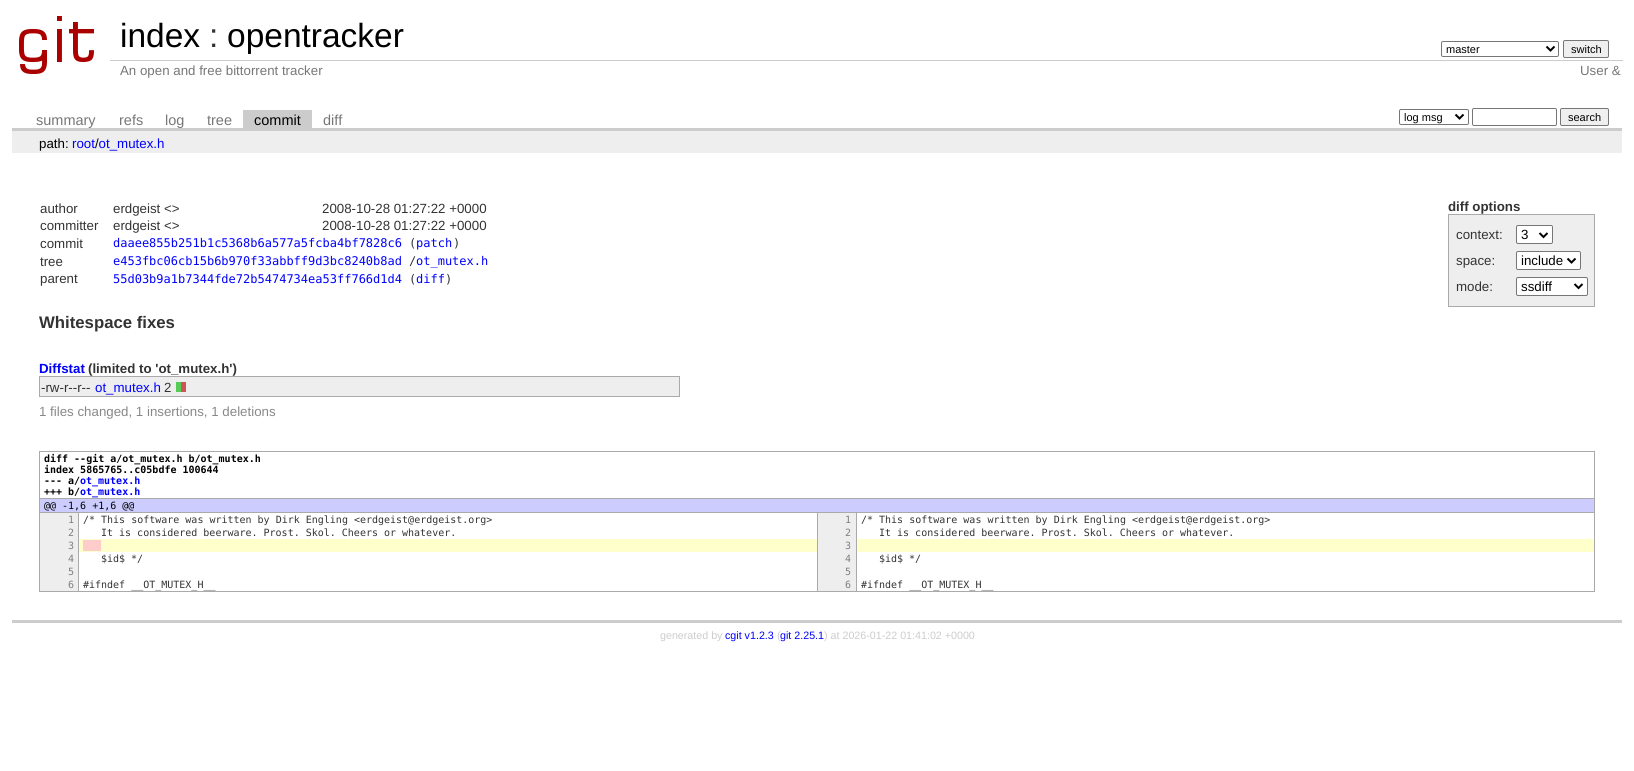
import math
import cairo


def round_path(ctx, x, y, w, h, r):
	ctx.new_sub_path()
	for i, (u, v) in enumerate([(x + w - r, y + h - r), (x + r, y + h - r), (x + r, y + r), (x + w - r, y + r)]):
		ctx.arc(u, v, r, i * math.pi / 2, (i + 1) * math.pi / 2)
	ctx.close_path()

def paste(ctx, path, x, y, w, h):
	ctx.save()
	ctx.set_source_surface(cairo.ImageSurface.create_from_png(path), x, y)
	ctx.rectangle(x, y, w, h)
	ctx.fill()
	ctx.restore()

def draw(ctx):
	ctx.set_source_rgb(1, 1, 1)
	ctx.paint()
	paste(ctx, 'media/1.png', 19, 16, 75, 58)
	ctx.select_font_face('Liberation Sans')
	ctx.set_font_size(33.5)
	ctx.set_source_rgb(0, 0, 0)
	ctx.move_to(120, 47)
	ctx.show_text('index')
	ctx.set_source_rgb(0.2, 0.2, 0.2)
	ctx.move_to(209, 47)
	ctx.show_text(':')
	ctx.set_source_rgb(0, 0, 0)
	ctx.move_to(227, 47)
	ctx.show_text('opentracker')
	round_path(ctx, 1441.5, 41.5, 117, 15, 1.5)
	ctx.set_source_rgb(0.463, 0.463, 0.463)
	ctx.set_line_width(1)
	ctx.stroke()
	ctx.new_path()
	ctx.move_to(1546.5, 46.5)
	ctx.line_to(1550.5, 50.5)
	ctx.line_to(1554.5, 46.5)
	ctx.set_source_rgb(0, 0, 0)
	ctx.set_line_width(2)
	ctx.stroke()
	ctx.set_font_size(11)
	ctx.move_to(1446, 53)
	ctx.show_text('master')
	ctx.set_source_rgb(0.937, 0.937, 0.937)
	round_path(ctx, 1563.5, 40.5, 45, 17, 1.5)
	ctx.fill_preserve()
	ctx.set_source_rgb(0.463, 0.463, 0.463)
	ctx.set_line_width(1)
	ctx.stroke()
	ctx.set_source_rgb(0, 0, 0)
	ctx.move_to(1571, 53)
	ctx.show_text('switch')
	ctx.set_font_size(13.3)
	ctx.set_source_rgb(0.467, 0.467, 0.467)
	ctx.move_to(120, 75)
	ctx.show_text('An open and free bittorrent tracker')
	ctx.set_source_rgb(0.8, 0.8, 0.8)
	ctx.rectangle(110, 60, 1513, 1)
	ctx.fill()
	ctx.set_source_rgb(0.467, 0.467, 0.467)
	ctx.move_to(1580, 75)
	ctx.show_text('User &')
	ctx.set_source_rgb(0.8, 0.8, 0.8)
	ctx.rectangle(12, 128, 1610, 3)
	ctx.fill()
	ctx.set_font_size(14.5)
	ctx.set_source_rgb(0.467, 0.467, 0.467)
	for x, y, s in [
		(36, 125, 'summary'),
		(119, 125, 'refs'),
		(165, 125, 'log'),
		(207, 125, 'tree'),
	]:
		ctx.move_to(x, y)
		ctx.show_text(s)
	ctx.set_source_rgb(0.8, 0.8, 0.8)
	ctx.rectangle(243, 110, 69, 18)
	ctx.fill()
	ctx.set_source_rgb(0, 0, 0)
	ctx.move_to(254, 125)
	ctx.show_text('commit')
	ctx.set_source_rgb(0.467, 0.467, 0.467)
	ctx.move_to(323, 125)
	ctx.show_text('diff')
	round_path(ctx, 1399.5, 109.5, 69, 15, 1.5)
	ctx.set_source_rgb(0.463, 0.463, 0.463)
	ctx.stroke()
	ctx.new_path()
	ctx.move_to(1455.5, 114.5)
	ctx.line_to(1459.5, 118.5)
	ctx.line_to(1463.5, 114.5)
	ctx.set_source_rgb(0, 0, 0)
	ctx.set_line_width(2)
	ctx.stroke()
	ctx.set_font_size(11)
	ctx.move_to(1404, 121)
	ctx.show_text('log msg')
	round_path(ctx, 1472.5, 108.5, 84, 17, 1.5)
	ctx.set_source_rgb(0.463, 0.463, 0.463)
	ctx.set_line_width(1)
	ctx.stroke()
	ctx.set_source_rgb(0.937, 0.937, 0.937)
	round_path(ctx, 1560.5, 108.5, 48, 17, 1.5)
	ctx.fill_preserve()
	ctx.set_source_rgb(0.463, 0.463, 0.463)
	ctx.stroke()
	ctx.set_source_rgb(0, 0, 0)
	ctx.move_to(1568, 121)
	ctx.show_text('search')
	ctx.set_source_rgb(0.933, 0.933, 0.933)
	ctx.rectangle(12, 131, 1610, 22)
	ctx.fill()
	ctx.set_font_size(13.3)
	ctx.set_source_rgb(0, 0, 0)
	ctx.move_to(39, 148)
	ctx.show_text('path:')
	ctx.set_source_rgb(0, 0, 1)
	ctx.move_to(72, 148)
	ctx.show_text('root ot_mutex.h')
	ctx.set_source_rgb(0, 0, 0)
	ctx.move_to(95, 148)
	ctx.show_text('/')
	ctx.set_source_rgb(0.8, 0.8, 0.8)
	ctx.rectangle(12, 620, 1610, 3)
	ctx.fill()
	ctx.set_source_rgb(0.2, 0.2, 0.2)
	for x, y, s in [
		(40, 213, 'author'),
		(113, 213, 'erdgeist <>'),
		(322, 213, '2008-10-28 01:27:22 +0000'),
		(40, 230, 'committer'),
		(113, 230, 'erdgeist <>'),
		(322, 230, '2008-10-28 01:27:22 +0000'),
		(40, 248, 'commit'),
	]:
		ctx.move_to(x, y)
		ctx.show_text(s)
	ctx.select_font_face('DejaVu Sans Mono')
	ctx.set_font_size(12)
	ctx.set_source_rgb(0, 0, 1)
	ctx.move_to(113, 247)
	ctx.show_text('daaee855b251b1c5368b6a577a5fcba4bf7828c6')
	ctx.set_source_rgb(0.2, 0.2, 0.2)
	ctx.move_to(409, 247)
	ctx.show_text('(')
	ctx.set_source_rgb(0, 0, 1)
	ctx.move_to(416, 247)
	ctx.show_text('patch')
	ctx.set_source_rgb(0.2, 0.2, 0.2)
	ctx.move_to(453, 247)
	ctx.show_text(')')
	ctx.select_font_face('Liberation Sans')
	ctx.set_font_size(13.3)
	ctx.move_to(40, 266)
	ctx.show_text('tree')
	ctx.select_font_face('DejaVu Sans Mono')
	ctx.set_font_size(12)
	ctx.set_source_rgb(0, 0, 1)
	ctx.move_to(113, 265)
	ctx.show_text('e453fbc06cb15b6b970f33abbff9d3bc8240b8ad')
	ctx.set_source_rgb(0.2, 0.2, 0.2)
	ctx.move_to(409, 265)
	ctx.show_text('/')
	ctx.set_source_rgb(0, 0, 1)
	ctx.move_to(416, 265)
	ctx.show_text('ot_mutex.h')
	ctx.select_font_face('Liberation Sans')
	ctx.set_font_size(13.3)
	ctx.set_source_rgb(0.2, 0.2, 0.2)
	ctx.move_to(40, 283)
	ctx.show_text('parent')
	ctx.select_font_face('DejaVu Sans Mono')
	ctx.set_font_size(12)
	ctx.set_source_rgb(0, 0, 1)
	ctx.move_to(113, 283)
	ctx.show_text('55d03b9a1b7344fde72b5474734ea53ff766d1d4')
	ctx.set_source_rgb(0.2, 0.2, 0.2)
	ctx.move_to(409, 283)
	ctx.show_text('(')
	ctx.set_source_rgb(0, 0, 1)
	ctx.move_to(416, 283)
	ctx.show_text('diff')
	ctx.set_source_rgb(0.2, 0.2, 0.2)
	ctx.move_to(445, 283)
	ctx.show_text(')')
	ctx.select_font_face('Liberation Sans', cairo.FONT_SLANT_NORMAL, cairo.FONT_WEIGHT_BOLD)
	ctx.set_font_size(13.3)
	ctx.move_to(1448, 211)
	ctx.show_text('diff options')
	ctx.set_source_rgb(0.933, 0.933, 0.933)
	ctx.rectangle(1449, 215, 145, 91)
	ctx.fill()
	ctx.set_source_rgb(0.667, 0.667, 0.667)
	ctx.rectangle(1448, 214, 147, 1)
	ctx.rectangle(1594, 214, 1, 93)
	ctx.rectangle(1448, 306, 147, 1)
	ctx.rectangle(1448, 214, 1, 93)
	ctx.fill()
	ctx.select_font_face('Liberation Sans')
	ctx.set_source_rgb(0.2, 0.2, 0.2)
	ctx.move_to(1456, 239)
	ctx.show_text('context:')
	ctx.set_source_rgb(1, 1, 1)
	round_path(ctx, 1516.5, 225.5, 36, 18, 1.5)
	ctx.fill_preserve()
	ctx.set_source_rgb(0.463, 0.463, 0.463)
	ctx.stroke()
	ctx.new_path()
	ctx.move_to(1539.5, 233)
	ctx.line_to(1543.5, 237)
	ctx.line_to(1547.5, 233)
	ctx.set_source_rgb(0, 0, 0)
	ctx.set_line_width(2)
	ctx.stroke()
	ctx.move_to(1521, 239)
	ctx.show_text('3')
	ctx.set_source_rgb(0.2, 0.2, 0.2)
	ctx.move_to(1456, 265)
	ctx.show_text('space:')
	ctx.set_source_rgb(1, 1, 1)
	round_path(ctx, 1516.5, 251.5, 64, 18, 1.5)
	ctx.fill_preserve()
	ctx.set_source_rgb(0.463, 0.463, 0.463)
	ctx.set_line_width(1)
	ctx.stroke()
	ctx.new_path()
	ctx.move_to(1567.5, 258.5)
	ctx.line_to(1571.5, 262.5)
	ctx.line_to(1575.5, 258.5)
	ctx.set_source_rgb(0, 0, 0)
	ctx.set_line_width(2)
	ctx.stroke()
	ctx.move_to(1521, 265)
	ctx.show_text('include')
	ctx.set_source_rgb(0.2, 0.2, 0.2)
	ctx.move_to(1456, 291)
	ctx.show_text('mode:')
	ctx.set_source_rgb(1, 1, 1)
	round_path(ctx, 1516.5, 277.5, 71, 18, 1.5)
	ctx.fill_preserve()
	ctx.set_source_rgb(0.463, 0.463, 0.463)
	ctx.set_line_width(1)
	ctx.stroke()
	ctx.new_path()
	ctx.move_to(1574.5, 284)
	ctx.line_to(1578.5, 288)
	ctx.line_to(1582.5, 284)
	ctx.set_source_rgb(0, 0, 0)
	ctx.set_line_width(2)
	ctx.stroke()
	ctx.move_to(1521, 291)
	ctx.show_text('ssdiff')
	ctx.select_font_face('Liberation Sans', cairo.FONT_SLANT_NORMAL, cairo.FONT_WEIGHT_BOLD)
	ctx.set_font_size(16.75)
	ctx.set_source_rgb(0.2, 0.2, 0.2)
	ctx.move_to(39, 328)
	ctx.show_text('Whitespace fixes')
	ctx.set_font_size(13.3)
	ctx.set_source_rgb(0, 0, 1)
	ctx.move_to(39, 373)
	ctx.show_text('Diffstat')
	ctx.set_source_rgb(0.2, 0.2, 0.2)
	ctx.move_to(88, 373)
	ctx.show_text('(limited to \'ot_mutex.h\')')
	ctx.set_source_rgb(0.933, 0.933, 0.933)
	ctx.rectangle(40, 377, 639, 19)
	ctx.fill()
	ctx.set_source_rgb(0.667, 0.667, 0.667)
	ctx.rectangle(39, 376, 641, 1)
	ctx.rectangle(679, 376, 1, 21)
	ctx.rectangle(39, 396, 641, 1)
	ctx.rectangle(39, 376, 1, 21)
	ctx.fill()
	ctx.select_font_face('Liberation Sans')
	ctx.set_source_rgb(0.2, 0.2, 0.2)
	ctx.move_to(41, 392)
	ctx.show_text('-rw-r--r--')
	ctx.set_source_rgb(0, 0, 1)
	ctx.move_to(95, 392)
	ctx.show_text('ot_mutex.h')
	ctx.set_source_rgb(0.2, 0.2, 0.2)
	ctx.move_to(164, 392)
	ctx.show_text('2')
	ctx.set_source_rgb(0.333, 0.8, 0.333)
	ctx.rectangle(176, 382, 5, 10)
	ctx.fill()
	ctx.set_source_rgb(0.8, 0.333, 0.333)
	ctx.rectangle(181, 382, 5, 10)
	ctx.fill()
	ctx.set_source_rgb(0.533, 0.533, 0.533)
	ctx.move_to(39, 416)
	ctx.show_text('1 files changed, 1 insertions, 1 deletions')
	ctx.set_source_rgb(0.667, 0.667, 0.667)
	ctx.rectangle(39, 451, 1556, 1)
	ctx.rectangle(39, 498, 1556, 1)
	ctx.rectangle(39, 591, 1556, 1)
	ctx.rectangle(1594, 512, 1, 80)
	ctx.rectangle(1594, 498, 1, 15)
	ctx.rectangle(1594, 451, 1, 48)
	ctx.rectangle(39, 512, 1, 80)
	ctx.rectangle(78, 512, 1, 80)
	ctx.rectangle(817, 512, 1, 80)
	ctx.rectangle(856, 512, 1, 80)
	ctx.rectangle(39, 512, 1556, 1)
	ctx.rectangle(39, 498, 1, 15)
	ctx.rectangle(39, 451, 1, 48)
	ctx.fill()
	ctx.select_font_face('DejaVu Sans Mono', cairo.FONT_SLANT_NORMAL, cairo.FONT_WEIGHT_BOLD)
	ctx.set_font_size(10)
	ctx.set_source_rgb(0, 0, 0)
	for x, y, s in [
		(44, 462, 'diff --git a/ot_mutex.h b/ot_mutex.h'),
		(44, 473, 'index 5865765..c05bdfe 100644'),
		(44, 484, '--- a/'),
	]:
		ctx.move_to(x, y)
		ctx.show_text(s)
	ctx.set_source_rgb(0, 0, 1)
	ctx.move_to(80, 484)
	ctx.show_text('ot_mutex.h')
	ctx.set_source_rgb(0, 0, 0)
	ctx.move_to(44, 495)
	ctx.show_text('+++ b/')
	ctx.set_source_rgb(0, 0, 1)
	ctx.move_to(80, 495)
	ctx.show_text('ot_mutex.h')
	ctx.set_source_rgb(0.8, 0.8, 1)
	ctx.rectangle(40, 499, 1554, 13)
	ctx.fill()
	ctx.select_font_face('DejaVu Sans Mono')
	ctx.set_source_rgb(0, 0, 0)
	ctx.move_to(44, 509)
	ctx.show_text('@@ -1,6 +1,6 @@')
	ctx.set_source_rgb(0.933, 0.933, 0.933)
	ctx.rectangle(40, 513, 38, 78)
	ctx.fill()
	ctx.set_source_rgb(0.502, 0.502, 0.502)
	ctx.move_to(68, 523)
	ctx.show_text('1')
	ctx.set_source_rgb(0.2, 0.2, 0.2)
	ctx.move_to(83, 523)
	ctx.show_text('/* This software was written by Dirk Engling <erdgeist@erdgeist.org>')
	ctx.set_source_rgb(0.933, 0.933, 0.933)
	ctx.rectangle(818, 513, 38, 78)
	ctx.fill()
	ctx.set_source_rgb(0.502, 0.502, 0.502)
	ctx.move_to(845, 523)
	ctx.show_text('1')
	ctx.set_source_rgb(0.2, 0.2, 0.2)
	ctx.move_to(861, 523)
	ctx.show_text('/* This software was written by Dirk Engling <erdgeist@erdgeist.org>')
	ctx.set_source_rgb(0.502, 0.502, 0.502)
	ctx.move_to(68, 536)
	ctx.show_text('2')
	ctx.set_source_rgb(0.2, 0.2, 0.2)
	ctx.move_to(101, 536)
	ctx.show_text('It is considered beerware. Prost. Skol. Cheers or whatever.')
	ctx.set_source_rgb(0.502, 0.502, 0.502)
	ctx.move_to(845, 536)
	ctx.show_text('2')
	ctx.set_source_rgb(0.2, 0.2, 0.2)
	ctx.move_to(879, 536)
	ctx.show_text('It is considered beerware. Prost. Skol. Cheers or whatever.')
	ctx.set_source_rgb(0.502, 0.502, 0.502)
	ctx.move_to(68, 549)
	ctx.show_text('3')
	ctx.set_source_rgb(1, 1, 0.8)
	ctx.rectangle(79, 539, 738, 13)
	ctx.fill()
	ctx.set_source_rgb(1, 0.8, 0.8)
	ctx.rectangle(83, 540, 18, 11)
	ctx.fill()
	ctx.set_source_rgb(0.502, 0.502, 0.502)
	ctx.move_to(845, 549)
	ctx.show_text('3')
	ctx.set_source_rgb(1, 1, 0.8)
	ctx.rectangle(857, 539, 737, 13)
	ctx.fill()
	ctx.set_source_rgb(0.502, 0.502, 0.502)
	ctx.move_to(68, 562)
	ctx.show_text('4')
	ctx.set_source_rgb(0.2, 0.2, 0.2)
	ctx.move_to(101, 562)
	ctx.show_text('$id$ */')
	ctx.set_source_rgb(0.502, 0.502, 0.502)
	ctx.move_to(845, 562)
	ctx.show_text('4')
	ctx.set_source_rgb(0.2, 0.2, 0.2)
	ctx.move_to(879, 562)
	ctx.show_text('$id$ */')
	ctx.set_source_rgb(0.502, 0.502, 0.502)
	for x, y, s in [
		(68, 575, '5'),
		(845, 575, '5'),
		(68, 588, '6'),
	]:
		ctx.move_to(x, y)
		ctx.show_text(s)
	ctx.set_source_rgb(0.2, 0.2, 0.2)
	ctx.move_to(83, 588)
	ctx.show_text('#ifndef __OT_MUTEX_H__')
	ctx.set_source_rgb(0.502, 0.502, 0.502)
	ctx.move_to(845, 588)
	ctx.show_text('6')
	ctx.set_source_rgb(0.2, 0.2, 0.2)
	ctx.move_to(861, 588)
	ctx.show_text('#ifndef __OT_MUTEX_H__')
	ctx.select_font_face('Liberation Sans')
	ctx.set_font_size(10.7)
	ctx.set_source_rgb(0.8, 0.8, 0.8)
	ctx.move_to(660, 639)
	ctx.show_text('generated by')
	ctx.set_source_rgb(0, 0, 1)
	ctx.move_to(725, 639)
	ctx.show_text('cgit v1.2.3')
	ctx.set_source_rgb(0.8, 0.8, 0.8)
	ctx.move_to(777, 639)
	ctx.show_text('(')
	ctx.set_source_rgb(0, 0, 1)
	ctx.move_to(780, 639)
	ctx.show_text('git 2.25.1')
	ctx.set_source_rgb(0.8, 0.8, 0.8)
	ctx.move_to(824, 639)
	ctx.show_text(') at 2026-01-22 01:41:02 +0000')


surface = cairo.ImageSurface(cairo.FORMAT_RGB24, 1634, 771)
ctx = cairo.Context(surface)
options = cairo.FontOptions()
options.set_hint_metrics(cairo.HINT_METRICS_OFF)
options.set_hint_style(cairo.HINT_STYLE_NONE)
ctx.set_font_options(options)
ctx.set_miter_limit(4)
draw(ctx)
surface.write_to_png('image.png')
